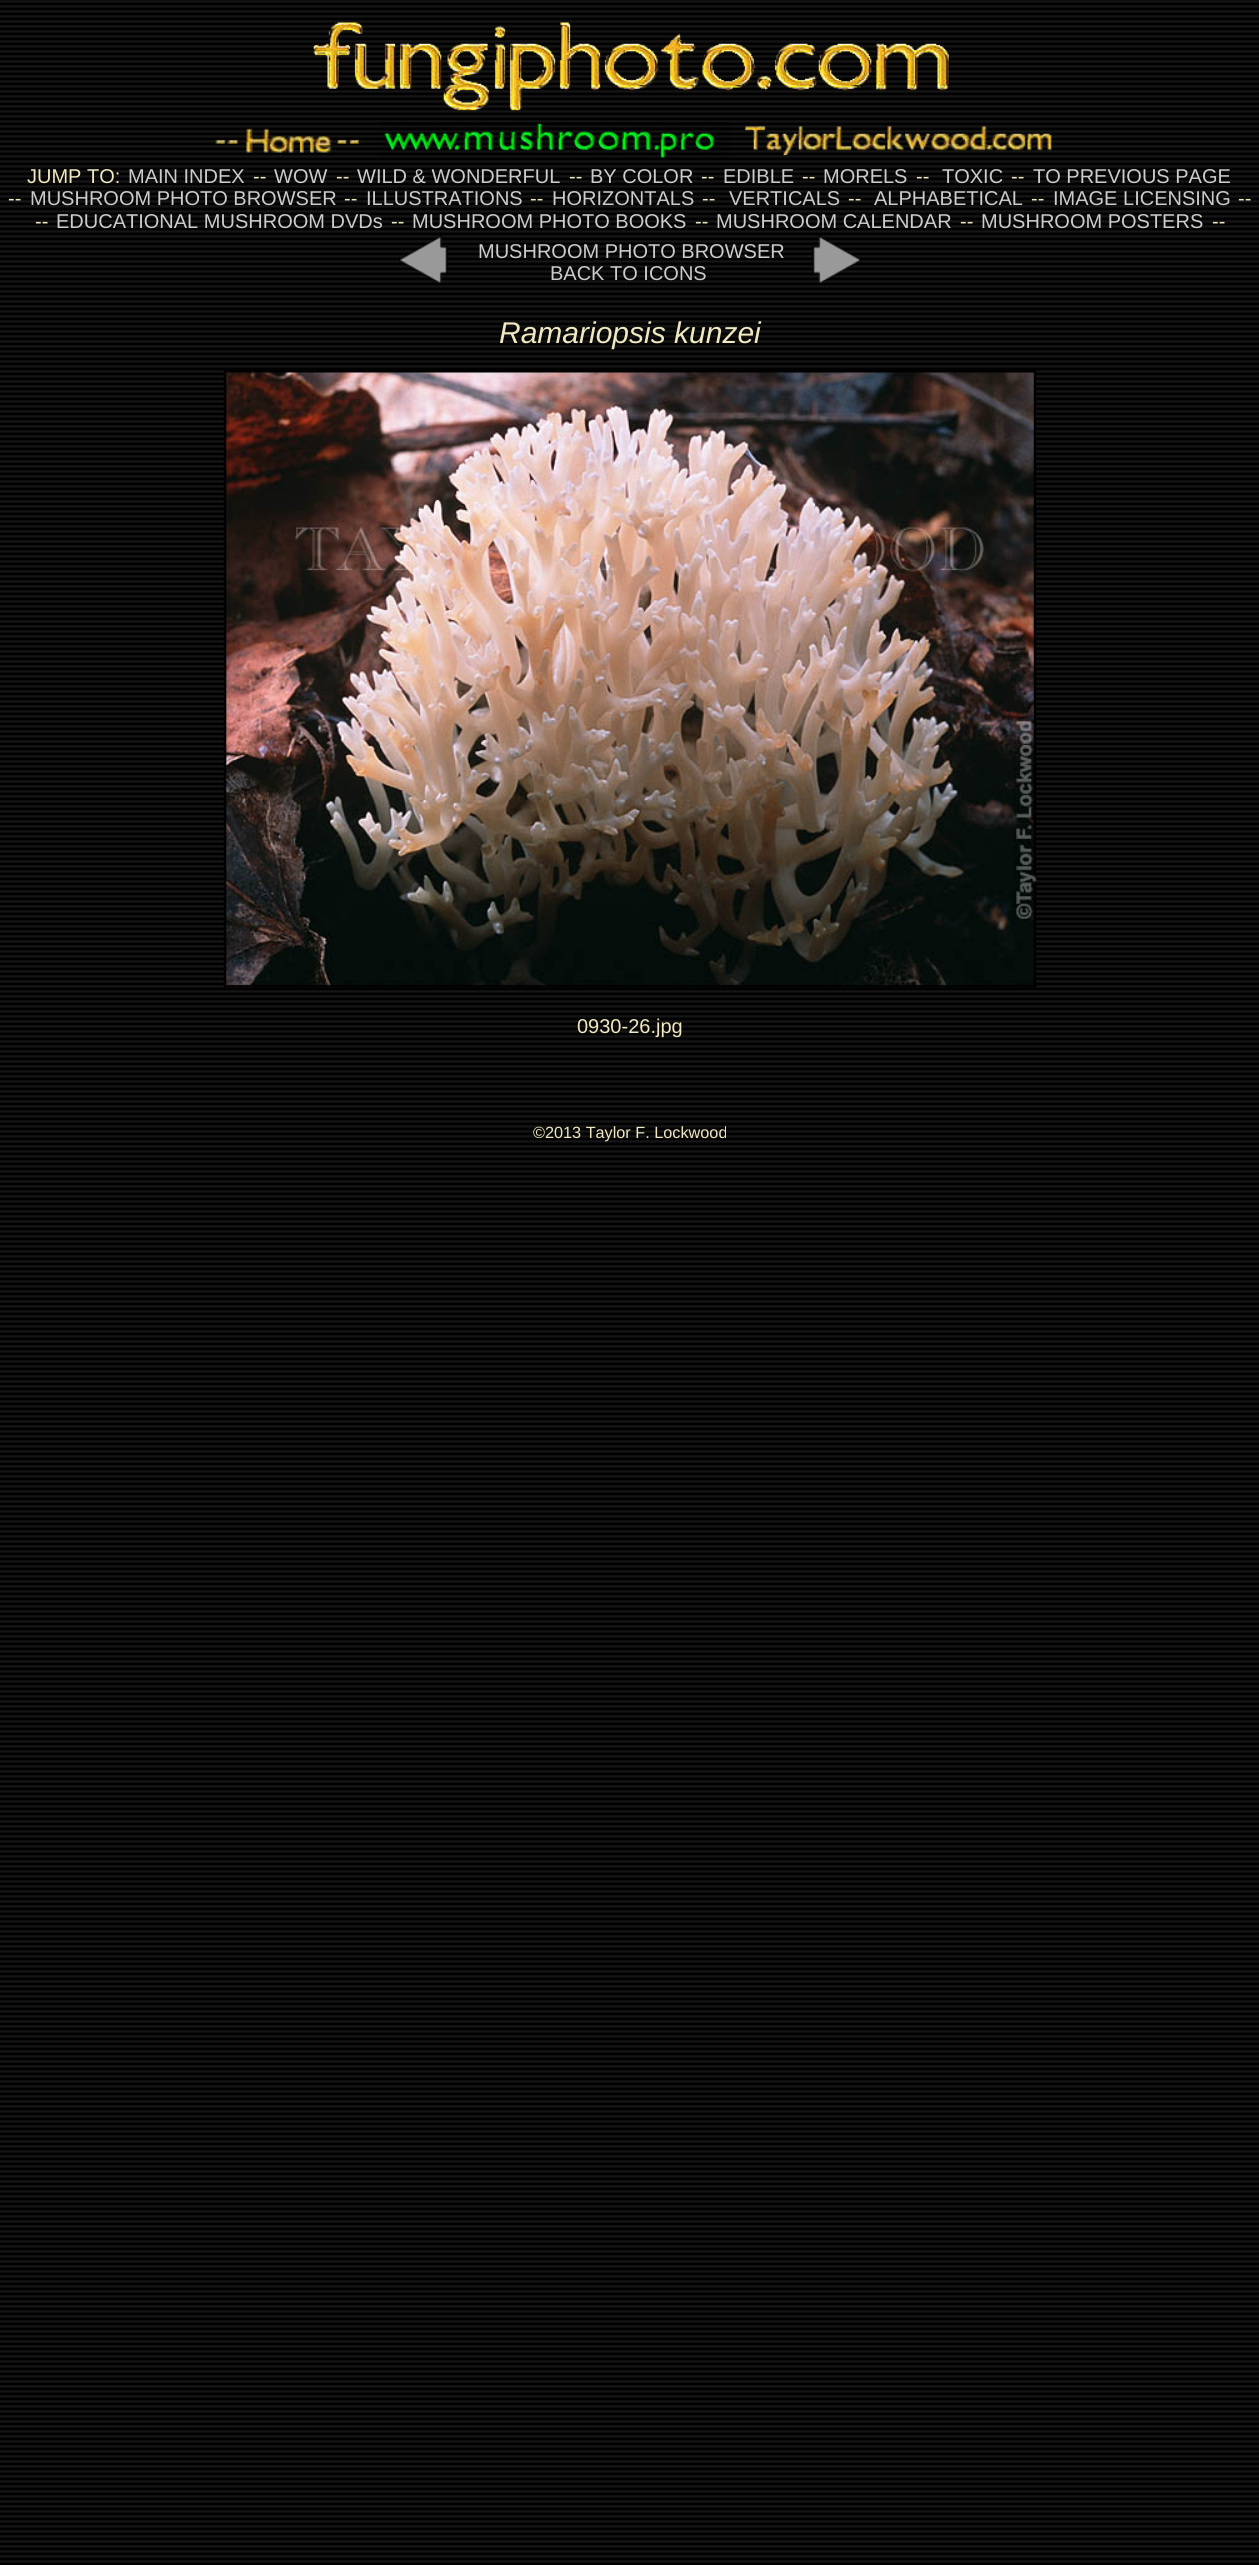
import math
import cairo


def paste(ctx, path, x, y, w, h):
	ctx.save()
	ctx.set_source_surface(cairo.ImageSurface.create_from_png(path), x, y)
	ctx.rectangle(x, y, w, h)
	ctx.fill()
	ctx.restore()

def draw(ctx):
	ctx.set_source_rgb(1, 1, 1)
	ctx.paint()
	paste(ctx, 'media/1.png', 0, 0, 1259, 2565)
	paste(ctx, 'media/2.png', 313, 22, 636, 89)
	paste(ctx, 'media/3.png', 215, 128, 144, 25)
	paste(ctx, 'media/4.png', 380, 122, 350, 36)
	paste(ctx, 'media/5.png', 744, 126, 308, 30)
	ctx.select_font_face('Liberation Sans')
	ctx.set_font_size(20)
	ctx.set_source_rgb(0.937, 0.91, 0.757)
	ctx.move_to(27, 183)
	ctx.show_text('JUMP TO:')
	ctx.set_source_rgb(0.8, 0.8, 0.8)
	ctx.move_to(128, 183)
	ctx.show_text('MAIN INDEX')
	ctx.set_source_rgb(0.937, 0.91, 0.757)
	ctx.move_to(253, 183)
	ctx.show_text('--')
	ctx.set_source_rgb(0.8, 0.8, 0.8)
	ctx.move_to(274, 183)
	ctx.show_text('WOW')
	ctx.set_source_rgb(0.937, 0.91, 0.757)
	ctx.move_to(336, 183)
	ctx.show_text('--')
	ctx.set_source_rgb(0.8, 0.8, 0.8)
	ctx.move_to(357, 183)
	ctx.show_text('WILD & WONDERFUL')
	ctx.set_source_rgb(0.937, 0.91, 0.757)
	ctx.move_to(569, 183)
	ctx.show_text('--')
	ctx.set_source_rgb(0.8, 0.8, 0.8)
	ctx.move_to(590, 183)
	ctx.show_text('BY COLOR')
	ctx.set_source_rgb(0.937, 0.91, 0.757)
	ctx.move_to(701, 183)
	ctx.show_text('--')
	ctx.set_source_rgb(0.8, 0.8, 0.8)
	ctx.move_to(723, 183)
	ctx.show_text('EDIBLE')
	ctx.set_source_rgb(0.937, 0.91, 0.757)
	ctx.move_to(802, 183)
	ctx.show_text('--')
	ctx.set_source_rgb(0.8, 0.8, 0.8)
	ctx.move_to(823, 183)
	ctx.show_text('MORELS')
	ctx.set_source_rgb(0.937, 0.91, 0.757)
	ctx.move_to(916, 183)
	ctx.show_text('--')
	ctx.set_source_rgb(0.8, 0.8, 0.8)
	ctx.move_to(942, 183)
	ctx.show_text('TOXIC')
	ctx.set_source_rgb(0.937, 0.91, 0.757)
	ctx.move_to(1011, 183)
	ctx.show_text('--')
	ctx.set_source_rgb(0.8, 0.8, 0.8)
	ctx.move_to(1033, 183)
	ctx.show_text('TO PREVIOUS PAGE')
	ctx.set_source_rgb(0.937, 0.91, 0.757)
	ctx.move_to(8, 205)
	ctx.show_text('--')
	ctx.set_source_rgb(0.8, 0.8, 0.8)
	ctx.move_to(30, 205)
	ctx.show_text('MUSHROOM PHOTO BROWSER')
	ctx.set_source_rgb(0.937, 0.91, 0.757)
	ctx.move_to(344, 205)
	ctx.show_text('--')
	ctx.set_source_rgb(0.8, 0.8, 0.8)
	ctx.move_to(366, 205)
	ctx.show_text('ILLUSTRATIONS')
	ctx.set_source_rgb(0.937, 0.91, 0.757)
	ctx.move_to(530, 205)
	ctx.show_text('--')
	ctx.set_source_rgb(0.8, 0.8, 0.8)
	ctx.move_to(552, 205)
	ctx.show_text('HORIZONTALS')
	ctx.set_source_rgb(0.937, 0.91, 0.757)
	ctx.move_to(702, 205)
	ctx.show_text('--')
	ctx.set_source_rgb(0.8, 0.8, 0.8)
	ctx.move_to(729, 205)
	ctx.show_text('VERTICALS')
	ctx.set_source_rgb(0.937, 0.91, 0.757)
	ctx.move_to(848, 205)
	ctx.show_text('--')
	ctx.set_source_rgb(0.8, 0.8, 0.8)
	ctx.move_to(874, 205)
	ctx.show_text('ALPHABETICAL')
	ctx.set_source_rgb(0.937, 0.91, 0.757)
	ctx.move_to(1031, 205)
	ctx.show_text('--')
	ctx.set_source_rgb(0.8, 0.8, 0.8)
	ctx.move_to(1053, 205)
	ctx.show_text('IMAGE LICENSING')
	ctx.set_source_rgb(0.937, 0.91, 0.757)
	ctx.move_to(1238, 205)
	ctx.show_text('--')
	ctx.move_to(35, 228)
	ctx.show_text('--')
	ctx.set_source_rgb(0.8, 0.8, 0.8)
	ctx.move_to(56, 228)
	ctx.show_text('EDUCATIONAL MUSHROOM DVDs')
	ctx.set_source_rgb(0.937, 0.91, 0.757)
	ctx.move_to(391, 228)
	ctx.show_text('--')
	ctx.set_source_rgb(0.8, 0.8, 0.8)
	ctx.move_to(412, 228)
	ctx.show_text('MUSHROOM PHOTO BOOKS')
	ctx.set_source_rgb(0.937, 0.91, 0.757)
	ctx.move_to(695, 228)
	ctx.show_text('--')
	ctx.set_source_rgb(0.8, 0.8, 0.8)
	ctx.move_to(716, 228)
	ctx.show_text('MUSHROOM CALENDAR')
	ctx.set_source_rgb(0.937, 0.91, 0.757)
	ctx.move_to(960, 228)
	ctx.show_text('--')
	ctx.set_source_rgb(0.8, 0.8, 0.8)
	ctx.move_to(981, 228)
	ctx.show_text('MUSHROOM POSTERS')
	ctx.set_source_rgb(0.937, 0.91, 0.757)
	ctx.move_to(1212, 228)
	ctx.show_text('--')
	paste(ctx, 'media/6.png', 399, 235, 49, 49)
	ctx.set_source_rgb(0.8, 0.8, 0.8)
	ctx.move_to(478, 258)
	ctx.show_text('MUSHROOM PHOTO BROWSER')
	ctx.move_to(550, 280)
	ctx.show_text('BACK TO ICONS')
	paste(ctx, 'media/7.png', 812, 235, 50, 49)
	ctx.select_font_face('Liberation Sans', cairo.FONT_SLANT_ITALIC)
	ctx.set_font_size(30)
	ctx.set_source_rgb(0.937, 0.91, 0.757)
	ctx.move_to(499, 343)
	ctx.show_text('Ramariopsis kunzei')
	paste(ctx, 'media/8.png', 223, 370, 814, 618)
	ctx.select_font_face('Liberation Sans')
	ctx.set_font_size(20)
	ctx.move_to(577, 1033)
	ctx.show_text('0930-26.jpg')
	ctx.set_font_size(16.25)
	ctx.move_to(533, 1138)
	ctx.show_text('©2013 Taylor F. Lockwood')


surface = cairo.ImageSurface(cairo.FORMAT_RGB24, 1259, 2565)
ctx = cairo.Context(surface)
options = cairo.FontOptions()
options.set_hint_metrics(cairo.HINT_METRICS_OFF)
options.set_hint_style(cairo.HINT_STYLE_NONE)
ctx.set_font_options(options)
ctx.set_miter_limit(4)
draw(ctx)
surface.write_to_png('image.png')
